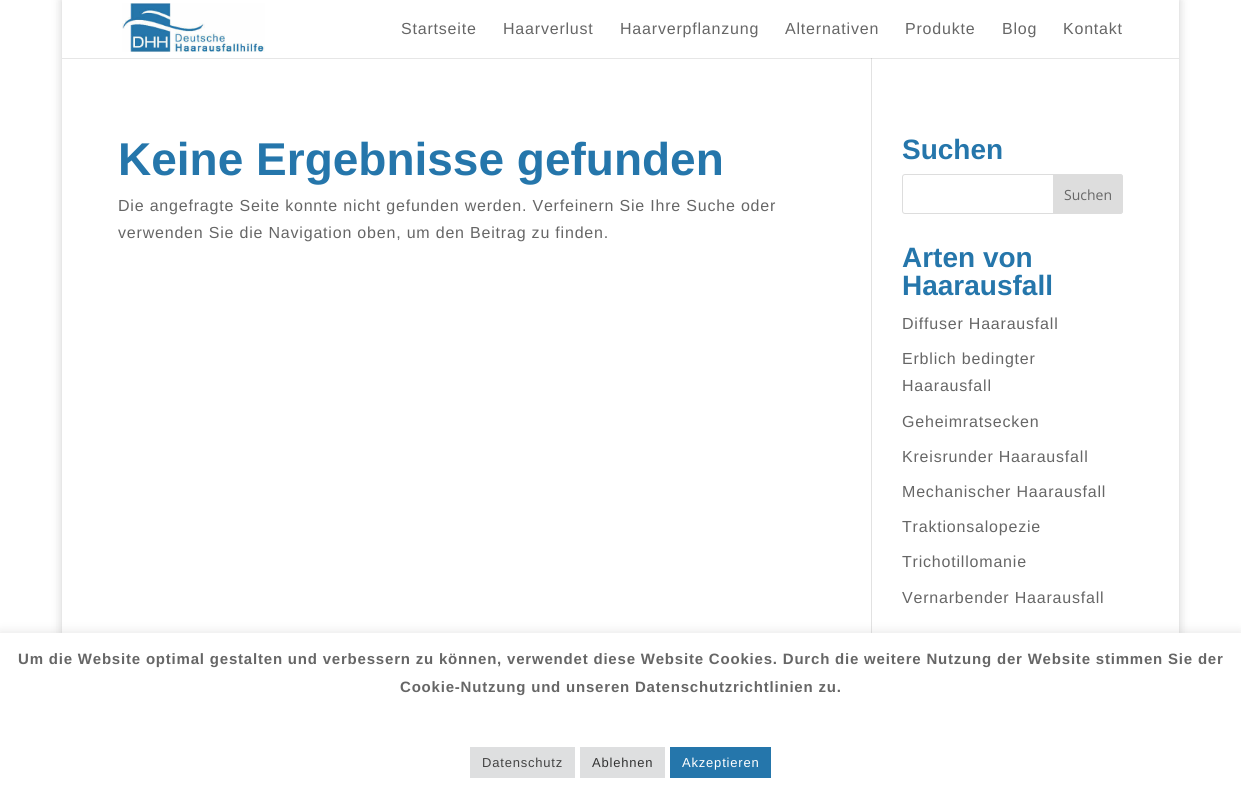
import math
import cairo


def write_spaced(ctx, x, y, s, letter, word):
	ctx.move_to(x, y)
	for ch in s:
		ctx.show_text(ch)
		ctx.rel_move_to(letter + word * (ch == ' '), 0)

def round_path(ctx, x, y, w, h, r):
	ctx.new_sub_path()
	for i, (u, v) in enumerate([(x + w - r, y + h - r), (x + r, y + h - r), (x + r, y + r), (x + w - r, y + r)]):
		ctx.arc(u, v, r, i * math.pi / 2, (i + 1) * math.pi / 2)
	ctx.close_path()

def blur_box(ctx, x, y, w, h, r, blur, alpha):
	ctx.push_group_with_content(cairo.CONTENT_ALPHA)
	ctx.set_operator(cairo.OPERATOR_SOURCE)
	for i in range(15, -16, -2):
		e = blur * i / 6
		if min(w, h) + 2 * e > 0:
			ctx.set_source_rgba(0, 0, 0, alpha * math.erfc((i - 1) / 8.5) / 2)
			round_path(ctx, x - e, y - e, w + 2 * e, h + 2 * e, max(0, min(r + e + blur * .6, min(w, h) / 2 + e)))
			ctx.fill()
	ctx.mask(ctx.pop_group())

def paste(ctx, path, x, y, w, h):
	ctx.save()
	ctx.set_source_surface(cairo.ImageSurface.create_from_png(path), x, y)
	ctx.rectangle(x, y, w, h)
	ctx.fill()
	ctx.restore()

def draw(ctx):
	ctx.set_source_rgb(1, 1, 1)
	ctx.paint()
	ctx.set_source_rgb(0.902, 0.902, 0.902)
	ctx.rectangle(62, 58, 1117, 1)
	ctx.fill()
	ctx.save()
	ctx.set_fill_rule(cairo.FILL_RULE_EVEN_ODD)
	ctx.new_path()
	ctx.move_to(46, 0)
	ctx.line_to(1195, 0)
	ctx.line_to(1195, 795)
	ctx.line_to(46, 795)
	ctx.close_path()
	ctx.move_to(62, 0)
	ctx.line_to(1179, 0)
	ctx.line_to(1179, 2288)
	ctx.line_to(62, 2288)
	ctx.close_path()
	ctx.clip()
	ctx.set_source_rgb(0, 0, 0)
	blur_box(ctx, 62, 0, 1117, 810, 0, 5, 0.2)
	ctx.restore()
	paste(ctx, 'media/1.png', 122, 3, 143, 49)
	ctx.select_font_face('Liberation Sans')
	ctx.set_font_size(16)
	ctx.set_source_rgb(0.4, 0.4, 0.4)
	for x, y, s in [
		(401, 34, 'Startseite'),
		(503, 34, 'Haarverlust'),
		(620, 34, 'Haarverpflanzung'),
		(785, 34, 'Alternativen'),
		(905, 34, 'Produkte'),
		(1002, 34, 'Blog'),
		(1063, 34, 'Kontakt'),
	]:
		write_spaced(ctx, x, y, s, 0.8, 0)
	ctx.set_source_rgb(0.886, 0.886, 0.886)
	ctx.rectangle(871, 58, 1, 575)
	ctx.fill()
	ctx.set_source_rgb(0.796, 0.796, 0.796)
	ctx.rectangle(871, 58, 1, 1)
	ctx.fill()
	ctx.select_font_face('Liberation Sans', cairo.FONT_SLANT_NORMAL, cairo.FONT_WEIGHT_BOLD)
	ctx.set_font_size(46)
	ctx.set_source_rgb(0.145, 0.463, 0.671)
	ctx.move_to(118, 175)
	ctx.show_text('Keine Ergebnisse gefunden')
	ctx.select_font_face('Liberation Sans')
	ctx.set_font_size(16)
	ctx.set_source_rgb(0.4, 0.4, 0.4)
	write_spaced(ctx, 118, 211, 'Die angefragte Seite konnte nicht gefunden werden. Verfeinern Sie Ihre Suche oder', 0.8, 0)
	write_spaced(ctx, 118, 238, 'verwenden Sie die Navigation oben, um den Beitrag zu finden.', 0.8, 0)
	ctx.select_font_face('Liberation Sans', cairo.FONT_SLANT_NORMAL, cairo.FONT_WEIGHT_BOLD)
	ctx.set_font_size(28)
	ctx.set_source_rgb(0.145, 0.463, 0.671)
	ctx.move_to(902, 159)
	ctx.show_text('Suchen')
	round_path(ctx, 902.5, 174.5, 220, 39, 2.5)
	ctx.set_source_rgb(0.867, 0.867, 0.867)
	ctx.set_line_width(1)
	ctx.stroke()
	ctx.new_path()
	ctx.move_to(1053.5, 174.5)
	ctx.line_to(1120, 174.5)
	ctx.curve_to(1121.5, 174.5, 1122.5, 175.5, 1122.5, 177)
	ctx.line_to(1122.5, 211)
	ctx.curve_to(1122.5, 212.5, 1121.5, 213.5, 1120, 213.5)
	ctx.line_to(1053.5, 213.5)
	ctx.close_path()
	ctx.fill_preserve()
	ctx.stroke()
	ctx.select_font_face('Open Sans')
	ctx.set_font_size(14)
	ctx.set_source_rgb(0.4, 0.4, 0.4)
	ctx.move_to(1064, 200)
	ctx.show_text('Suchen')
	ctx.select_font_face('Liberation Sans', cairo.FONT_SLANT_NORMAL, cairo.FONT_WEIGHT_BOLD)
	ctx.set_font_size(28)
	ctx.set_source_rgb(0.145, 0.463, 0.671)
	ctx.move_to(902, 267)
	ctx.show_text('Arten von')
	ctx.move_to(902, 295)
	ctx.show_text('Haarausfall')
	ctx.select_font_face('Liberation Sans')
	ctx.set_font_size(16)
	ctx.set_source_rgb(0.4, 0.4, 0.4)
	for x, y, s in [
		(902, 329, 'Diffuser Haarausfall'),
		(902, 364, 'Erblich bedingter'),
		(902, 391, 'Haarausfall'),
		(902, 427, 'Geheimratsecken'),
		(902, 462, 'Kreisrunder Haarausfall'),
		(902, 497, 'Mechanischer Haarausfall'),
		(902, 532, 'Traktionsalopezie'),
		(902, 567, 'Trichotillomanie'),
		(902, 603, 'Vernarbender Haarausfall'),
	]:
		write_spaced(ctx, x, y, s, 0.8, 0)
	ctx.set_source_rgb(0.675, 0.671, 0.671)
	blur_box(ctx, 0, 632, 1241, 162, 0, 5, 0.3)
	ctx.set_source_rgb(1, 1, 1)
	ctx.rectangle(0, 633, 1241, 162)
	ctx.fill()
	ctx.select_font_face('Liberation Sans', cairo.FONT_SLANT_NORMAL, cairo.FONT_WEIGHT_BOLD)
	ctx.set_font_size(15)
	ctx.set_source_rgb(0.4, 0.4, 0.4)
	write_spaced(ctx, 18, 664, 'Um die Website optimal gestalten und verbessern zu können, verwendet diese Website Cookies. Durch die weitere Nutzung der Website stimmen Sie der', 0.8, 0)
	write_spaced(ctx, 400, 692, 'Cookie-Nutzung und unseren Datenschutzrichtlinien zu.', 0.8, 0)
	ctx.set_source_rgb(0.871, 0.875, 0.878)
	ctx.rectangle(470, 747, 105, 31)
	ctx.fill()
	ctx.select_font_face('Liberation Sans')
	ctx.set_font_size(13)
	ctx.set_source_rgb(0.267, 0.267, 0.267)
	write_spaced(ctx, 482, 767, 'Datenschutz', 0.8, 0)
	ctx.set_source_rgb(0.871, 0.875, 0.878)
	ctx.rectangle(580, 747, 85, 31)
	ctx.fill()
	ctx.set_source_rgb(0.2, 0.2, 0.2)
	write_spaced(ctx, 592, 767, 'Ablehnen', 0.8, 0)
	ctx.set_source_rgb(0.145, 0.463, 0.671)
	ctx.rectangle(670, 747, 101, 31)
	ctx.fill()
	ctx.set_source_rgb(1, 1, 1)
	write_spaced(ctx, 682, 767, 'Akzeptieren', 0.8, 0)


surface = cairo.ImageSurface(cairo.FORMAT_RGB24, 1241, 795)
ctx = cairo.Context(surface)
options = cairo.FontOptions()
options.set_hint_metrics(cairo.HINT_METRICS_OFF)
options.set_hint_style(cairo.HINT_STYLE_NONE)
ctx.set_font_options(options)
ctx.set_miter_limit(4)
draw(ctx)
surface.write_to_png('image.png')
